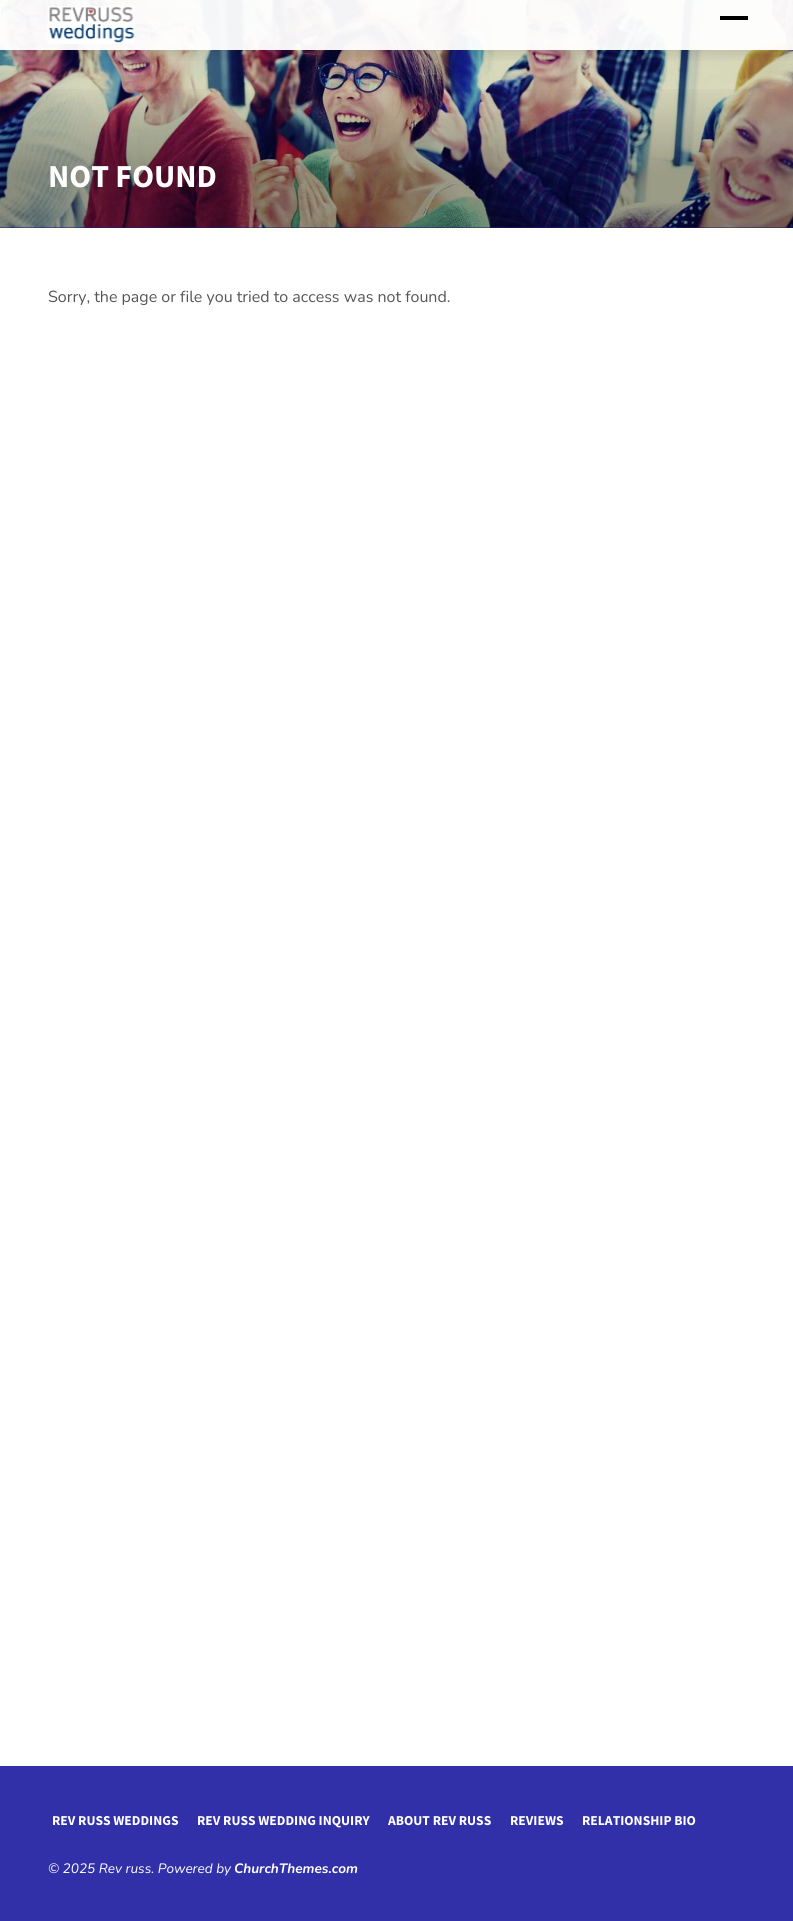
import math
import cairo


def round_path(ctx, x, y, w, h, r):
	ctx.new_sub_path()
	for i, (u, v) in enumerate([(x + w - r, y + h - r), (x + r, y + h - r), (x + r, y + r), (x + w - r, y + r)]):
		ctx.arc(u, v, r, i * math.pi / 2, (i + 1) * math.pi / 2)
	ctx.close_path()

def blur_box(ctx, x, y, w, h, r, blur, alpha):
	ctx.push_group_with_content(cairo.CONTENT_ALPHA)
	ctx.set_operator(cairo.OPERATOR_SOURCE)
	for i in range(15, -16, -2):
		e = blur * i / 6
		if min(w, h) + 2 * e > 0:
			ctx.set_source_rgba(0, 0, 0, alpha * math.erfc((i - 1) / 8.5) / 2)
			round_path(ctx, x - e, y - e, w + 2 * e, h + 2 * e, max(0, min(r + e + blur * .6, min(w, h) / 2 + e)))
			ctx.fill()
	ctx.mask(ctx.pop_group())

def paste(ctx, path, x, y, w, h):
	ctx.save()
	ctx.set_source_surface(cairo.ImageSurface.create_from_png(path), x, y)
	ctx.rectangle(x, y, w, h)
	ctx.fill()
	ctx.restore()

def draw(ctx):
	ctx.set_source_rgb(1, 1, 1)
	ctx.paint()
	ctx.set_source_rgb(0.176, 0.169, 0.592)
	ctx.rectangle(0, 0, 793, 228)
	ctx.fill()
	paste(ctx, 'media/2.png', 0, 0, 793, 228)
	ctx.save()
	ctx.rectangle(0, 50, 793, 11)
	ctx.clip()
	ctx.set_source_rgb(0, 0, 0)
	blur_box(ctx, 0, 3, 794, 50, 0, 7.5, 0.14)
	ctx.restore()
	ctx.set_source_rgba(1, 1, 1, 0.95)
	ctx.rectangle(0, 0, 793, 50)
	ctx.fill()
	paste(ctx, 'media/1.png', 47, 6, 88, 38)
	ctx.set_source_rgb(0, 0, 0)
	ctx.rectangle(720, 16, 28, 4)
	ctx.fill()
	gradient = cairo.LinearGradient(397, 0, 397, 228)
	gradient.add_color_stop_rgba(0, 0, 0, 0, 0)
	gradient.add_color_stop_rgba(0.36, 0, 0, 0, 0)
	gradient.add_color_stop_rgba(0.76, 0, 0, 0, 0.28)
	gradient.add_color_stop_rgba(1, 0, 0, 0, 0.28)
	ctx.set_source(gradient)
	ctx.rectangle(0, 89, 793, 139)
	ctx.fill()
	ctx.select_font_face('Source Sans Pro', cairo.FONT_SLANT_NORMAL, cairo.FONT_WEIGHT_BOLD)
	ctx.set_font_size(32)
	ctx.set_source_rgb(1, 1, 1)
	ctx.move_to(48, 187)
	ctx.show_text('NOT FOUND')
	ctx.select_font_face('Nunito')
	ctx.set_font_size(16)
	ctx.set_source_rgb(0.333, 0.333, 0.333)
	ctx.move_to(48, 302)
	ctx.show_text('Sorry, the page or file you tried to access was not found.')
	ctx.set_source_rgb(0.196, 0.188, 0.659)
	ctx.rectangle(0, 1766, 793, 155)
	ctx.fill()
	ctx.select_font_face('Source Sans Pro', cairo.FONT_SLANT_NORMAL, cairo.FONT_WEIGHT_BOLD)
	ctx.set_font_size(13.6)
	ctx.set_source_rgb(1, 1, 1)
	for x, y, s in [
		(52, 1825, 'REV RUSS WEDDINGS'),
		(197, 1825, 'REV RUSS WEDDING INQUIRY'),
		(388, 1825, 'ABOUT REV RUSS'),
		(510, 1825, 'REVIEWS'),
		(582, 1825, 'RELATIONSHIP BIO'),
	]:
		ctx.move_to(x, y)
		ctx.show_text(s)
	ctx.select_font_face('Nunito', cairo.FONT_SLANT_ITALIC)
	ctx.move_to(48, 1873)
	ctx.show_text('© 2025 Rev russ. Powered by')
	ctx.select_font_face('Nunito', cairo.FONT_SLANT_ITALIC, cairo.FONT_WEIGHT_BOLD)
	ctx.move_to(234, 1873)
	ctx.show_text('ChurchThemes.com')


surface = cairo.ImageSurface(cairo.FORMAT_RGB24, 793, 1921)
ctx = cairo.Context(surface)
options = cairo.FontOptions()
options.set_hint_metrics(cairo.HINT_METRICS_OFF)
options.set_hint_style(cairo.HINT_STYLE_NONE)
ctx.set_font_options(options)
ctx.set_miter_limit(4)
draw(ctx)
surface.write_to_png('image.png')
